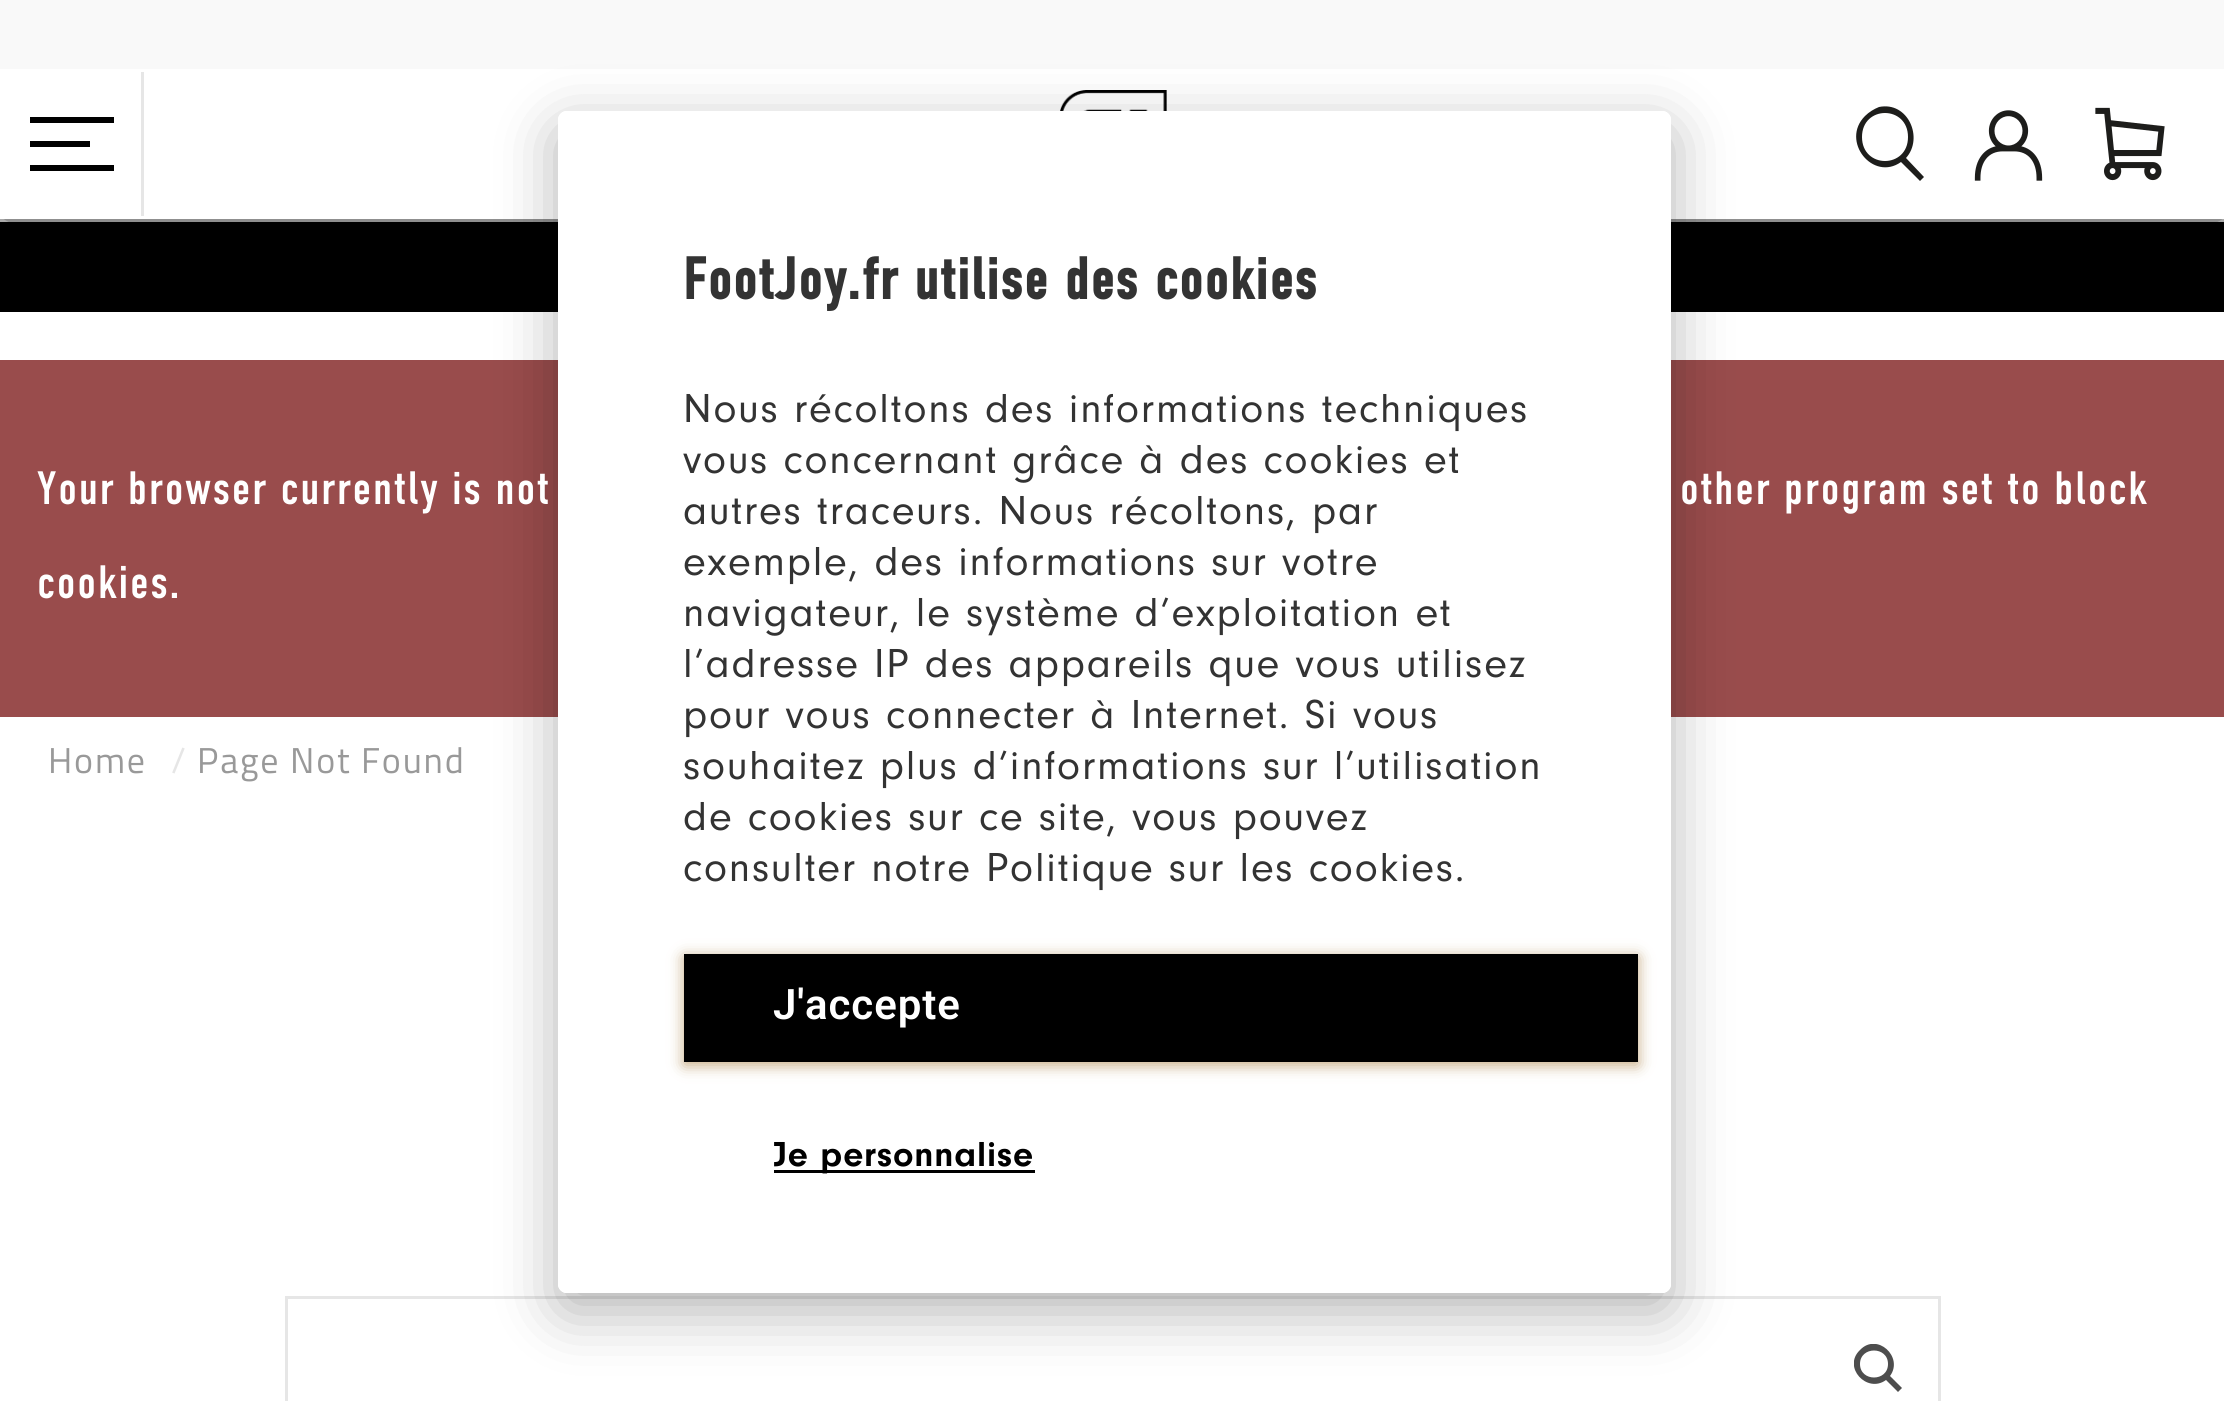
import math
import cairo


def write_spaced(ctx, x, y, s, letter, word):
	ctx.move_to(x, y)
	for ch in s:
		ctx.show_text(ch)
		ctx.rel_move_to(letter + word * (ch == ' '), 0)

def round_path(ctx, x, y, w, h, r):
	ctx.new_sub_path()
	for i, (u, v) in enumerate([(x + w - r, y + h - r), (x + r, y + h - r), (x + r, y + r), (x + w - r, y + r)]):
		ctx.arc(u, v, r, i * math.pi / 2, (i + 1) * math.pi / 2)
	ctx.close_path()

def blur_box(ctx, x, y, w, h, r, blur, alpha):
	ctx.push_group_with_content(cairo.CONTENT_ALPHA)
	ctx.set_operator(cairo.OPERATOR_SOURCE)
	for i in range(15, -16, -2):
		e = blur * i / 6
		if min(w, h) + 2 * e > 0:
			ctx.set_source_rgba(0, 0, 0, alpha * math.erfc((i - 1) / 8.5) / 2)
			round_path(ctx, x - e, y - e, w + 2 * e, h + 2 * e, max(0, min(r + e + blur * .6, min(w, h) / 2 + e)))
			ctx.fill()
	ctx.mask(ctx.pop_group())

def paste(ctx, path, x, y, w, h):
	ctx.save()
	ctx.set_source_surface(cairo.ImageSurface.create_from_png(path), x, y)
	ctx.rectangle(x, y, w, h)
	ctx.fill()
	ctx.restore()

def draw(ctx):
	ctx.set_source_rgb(1, 1, 1)
	ctx.paint()
	ctx.set_source_rgb(0, 0, 0)
	ctx.rectangle(0, 222, 2224, 90)
	ctx.fill()
	ctx.save()
	ctx.rectangle(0, 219, 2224, 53)
	ctx.clip()
	ctx.set_source_rgb(0, 0, 0)
	blur_box(ctx, 0, 69, 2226, 150, 0, 30, 0.5)
	blur_box(ctx, 0, 69, 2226, 150, 0, 30, 0.5)
	ctx.restore()
	paste(ctx, 'media/1.png', 1060, 90, 107, 21)
	ctx.set_source_rgb(0.973, 0.973, 0.973)
	ctx.rectangle(0, 0, 2224, 69)
	ctx.fill()
	ctx.set_source_rgb(0.6, 0.298, 0.298)
	ctx.rectangle(0, 360, 2224, 357)
	ctx.fill()
	ctx.rectangle(286.5, 1297.5, 1653, 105)
	ctx.set_source_rgb(0.902, 0.902, 0.902)
	ctx.set_line_width(3)
	ctx.stroke()
	ctx.save()
	ctx.set_fill_rule(cairo.FILL_RULE_EVEN_ODD)
	ctx.new_path()
	ctx.move_to(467, 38)
	ctx.line_to(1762, 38)
	ctx.line_to(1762, 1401)
	ctx.line_to(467, 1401)
	ctx.close_path()
	ctx.move_to(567, 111)
	ctx.line_to(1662, 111)
	ctx.curve_to(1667, 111, 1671, 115, 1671, 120)
	ctx.line_to(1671, 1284)
	ctx.curve_to(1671, 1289, 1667, 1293, 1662, 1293)
	ctx.line_to(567, 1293)
	ctx.curve_to(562, 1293, 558, 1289, 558, 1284)
	ctx.line_to(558, 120)
	ctx.curve_to(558, 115, 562, 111, 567, 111)
	ctx.close_path()
	ctx.clip()
	ctx.set_source_rgb(0, 0, 0)
	blur_box(ctx, 558, 129, 1113, 1182, 9, 30, 0.3)
	ctx.restore()
	ctx.set_source_rgb(1, 1, 1)
	round_path(ctx, 558, 111, 1113, 1182, 9)
	ctx.fill()
	ctx.select_font_face('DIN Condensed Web', cairo.FONT_SLANT_NORMAL, cairo.FONT_WEIGHT_BOLD)
	ctx.set_font_size(58.75)
	ctx.set_source_rgb(0.2, 0.2, 0.2)
	write_spaced(ctx, 683, 299, 'FootJoy.fr utilise des cookies', 1.8, 0)
	ctx.select_font_face('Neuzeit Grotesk')
	ctx.set_font_size(42)
	for x, y, s in [
		(683, 422, 'Nous récoltons des informations techniques'),
		(683, 473, 'vous concernant grâce à des cookies et'),
		(683, 524, 'autres traceurs. Nous récoltons, par'),
		(683, 575, 'exemple, des informations sur votre'),
		(683, 626, 'navigateur, le système d’exploitation et'),
		(683, 677, 'l’adresse IP des appareils que vous utilisez'),
		(683, 728, 'pour vous connecter à Internet. Si vous'),
		(683, 779, 'souhaitez plus d’informations sur l’utilisation'),
		(683, 830, 'de cookies sur ce site, vous pouvez'),
		(683, 881, 'consulter notre Politique sur les cookies.'),
	]:
		write_spaced(ctx, x, y, s, 1.8, 0)
	ctx.set_source_rgb(0.545, 0.325, 0)
	blur_box(ctx, 684, 957, 954, 108, 0, 7.5, 0.5)
	ctx.set_source_rgb(0, 0, 0)
	ctx.rectangle(684, 954, 954, 108)
	ctx.fill()
	ctx.select_font_face('Roboto SemiBold')
	ctx.set_source_rgb(1, 1, 1)
	write_spaced(ctx, 773, 1019, 'J\'accepte', 0.9, 0)
	ctx.set_source_rgb(0, 0, 0)
	ctx.rectangle(774, 1170, 261, 3)
	ctx.fill()
	ctx.select_font_face('Neuzeit Grotesk', cairo.FONT_SLANT_NORMAL, cairo.FONT_WEIGHT_BOLD)
	ctx.set_font_size(36)
	write_spaced(ctx, 773, 1166, 'Je personnalise', 0.9, 0)
	ctx.set_source_rgb(0.902, 0.902, 0.902)
	ctx.rectangle(141, 72, 3, 144)
	ctx.fill()
	ctx.set_source_rgb(0, 0, 0)
	ctx.rectangle(30, 117, 84, 6)
	ctx.rectangle(30, 141, 60, 6)
	ctx.rectangle(30, 165, 84, 6)
	ctx.fill()
	ctx.set_source_rgb(0.114, 0.114, 0.106)
	ctx.new_path()
	ctx.move_to(1924, 177)
	ctx.line_to(1906, 158)
	ctx.curve_to(1924, 138, 1908, 101, 1879, 107)
	ctx.curve_to(1874, 109, 1869, 112, 1865, 116)
	ctx.curve_to(1840, 141, 1873, 182, 1901, 162)
	ctx.line_to(1920, 181)
	ctx.close_path()
	ctx.move_to(1862, 137)
	ctx.curve_to(1862, 105, 1908, 105, 1908, 137)
	ctx.curve_to(1908, 169, 1862, 169, 1862, 137)
	ctx.close_path()
	ctx.fill()
	paste(ctx, 'media/2.png', 1974, 110, 69, 71)
	paste(ctx, 'media/3.png', 2095, 107, 70, 74)
	ctx.select_font_face('DIN Condensed Web')
	ctx.set_font_size(46.75)
	ctx.set_source_rgb(1, 1, 1)
	for x, y, s in [
		(37, 504, 'Your browser currently is not'),
		(1680, 504, 'other program set to block'),
		(37, 598, 'cookies.'),
	]:
		write_spaced(ctx, x, y, s, 1.8, 0)
	ctx.select_font_face('Titillium Web')
	ctx.set_font_size(36)
	ctx.set_source_rgb(0.6, 0.6, 0.6)
	write_spaced(ctx, 48, 773, 'Home', 1.8, 0)
	ctx.set_source_rgb(0.902, 0.902, 0.902)
	write_spaced(ctx, 171, 773, '/', 1.8, 0)
	ctx.set_source_rgb(0.6, 0.6, 0.6)
	write_spaced(ctx, 197, 773, 'Page Not Found', 1.8, 0)
	ctx.save()
	ctx.rectangle(1854, 1344, 48, 48)
	ctx.clip()
	ctx.set_source_rgb(0.302, 0.302, 0.302)
	ctx.new_path()
	ctx.move_to(1902, 1388)
	ctx.line_to(1890, 1376)
	ctx.curve_to(1904, 1357, 1877, 1332, 1860, 1350)
	ctx.curve_to(1842, 1367, 1867, 1394, 1886, 1380)
	ctx.line_to(1898, 1392)
	ctx.close_path()
	ctx.move_to(1860, 1364)
	ctx.curve_to(1860, 1346, 1888, 1346, 1888, 1364)
	ctx.curve_to(1888, 1382, 1860, 1382, 1860, 1364)
	ctx.close_path()
	ctx.fill()
	ctx.restore()


surface = cairo.ImageSurface(cairo.FORMAT_RGB24, 2224, 1401)
ctx = cairo.Context(surface)
options = cairo.FontOptions()
options.set_hint_metrics(cairo.HINT_METRICS_OFF)
options.set_hint_style(cairo.HINT_STYLE_NONE)
ctx.set_font_options(options)
ctx.set_miter_limit(4)
draw(ctx)
surface.write_to_png('image.png')
